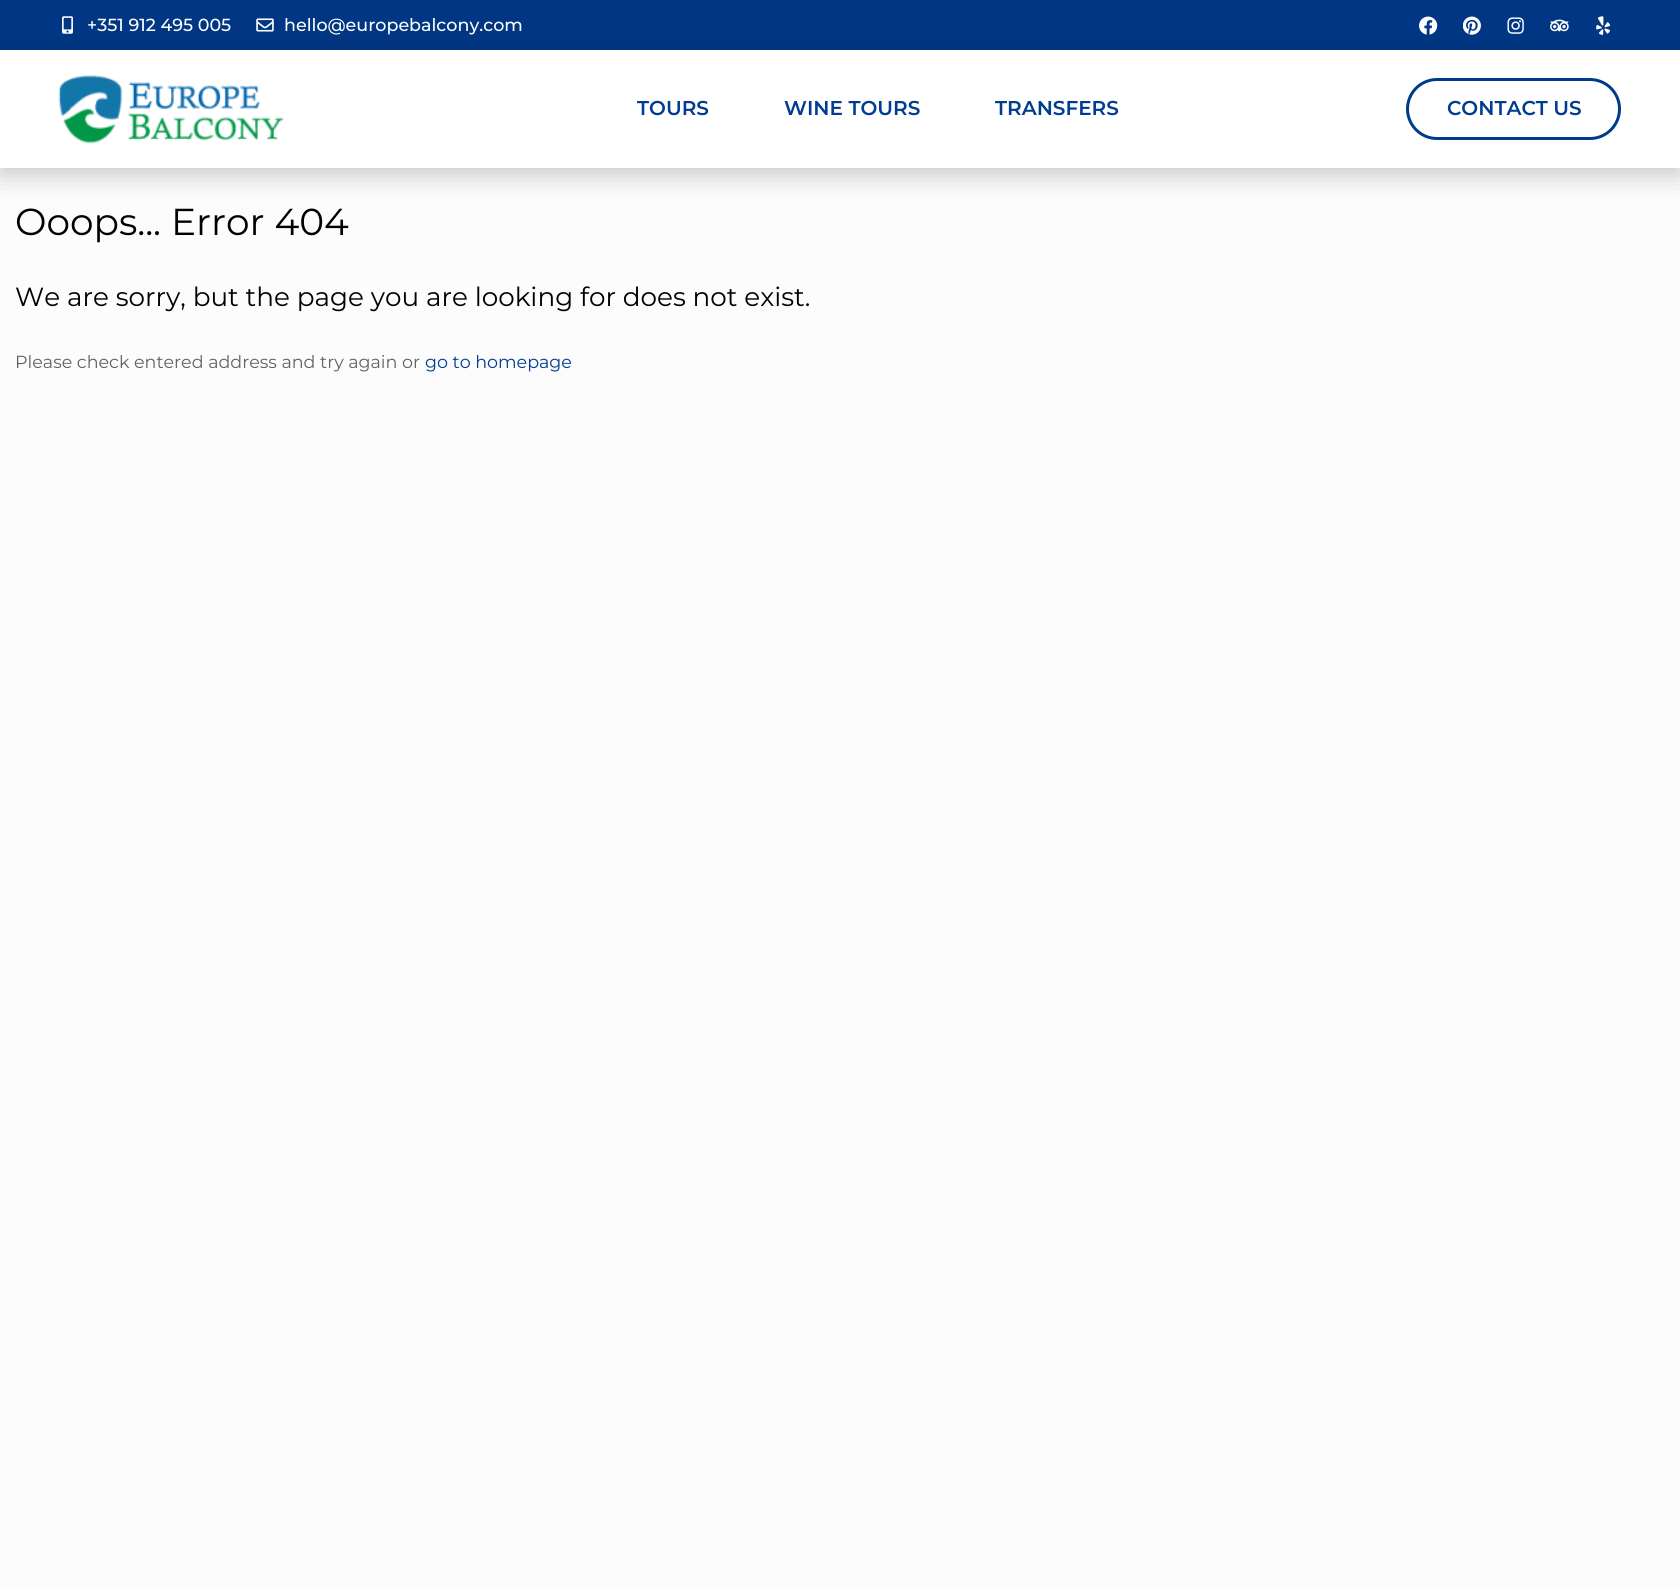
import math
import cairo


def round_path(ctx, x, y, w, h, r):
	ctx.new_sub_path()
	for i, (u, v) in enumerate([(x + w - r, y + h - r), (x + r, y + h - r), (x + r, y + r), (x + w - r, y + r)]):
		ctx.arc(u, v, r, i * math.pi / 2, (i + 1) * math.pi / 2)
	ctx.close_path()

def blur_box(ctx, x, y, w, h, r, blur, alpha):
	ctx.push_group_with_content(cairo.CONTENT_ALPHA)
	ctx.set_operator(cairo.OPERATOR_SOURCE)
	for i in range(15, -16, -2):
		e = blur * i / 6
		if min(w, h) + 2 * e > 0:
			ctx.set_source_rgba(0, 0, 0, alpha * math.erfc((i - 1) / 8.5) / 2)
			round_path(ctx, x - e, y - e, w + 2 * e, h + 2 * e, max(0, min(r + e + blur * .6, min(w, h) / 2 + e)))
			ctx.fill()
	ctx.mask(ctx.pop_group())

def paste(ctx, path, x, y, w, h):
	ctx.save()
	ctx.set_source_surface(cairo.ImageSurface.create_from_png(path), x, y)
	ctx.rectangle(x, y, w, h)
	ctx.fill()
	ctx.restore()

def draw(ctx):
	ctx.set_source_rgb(0.988, 0.988, 0.988)
	ctx.paint()
	ctx.set_source_rgb(0, 0.212, 0.514)
	ctx.rectangle(0, 0, 1680, 50)
	ctx.fill()
	paste(ctx, 'media/1.png', 62, 16, 11, 18)
	ctx.select_font_face('Montserrat Medium')
	ctx.set_font_size(17.5)
	ctx.set_source_rgb(1, 1, 1)
	ctx.move_to(87, 31)
	ctx.show_text('+351 912 495 005')
	paste(ctx, 'media/2.png', 256, 18, 18, 14)
	ctx.move_to(284, 31)
	ctx.show_text('hello@europebalcony.com')
	paste(ctx, 'media/3.png', 1419, 16, 19, 19)
	paste(ctx, 'media/4.png', 1463, 16, 18, 19)
	paste(ctx, 'media/5.png', 1507, 17, 17, 17)
	paste(ctx, 'media/6.png', 1550, 19, 19, 13)
	paste(ctx, 'media/7.png', 1596, 16, 15, 19)
	ctx.set_source_rgb(0, 0, 0)
	blur_box(ctx, 0, 59, 1680, 117, 0, 12.5, 0.2)
	ctx.set_source_rgb(1, 1, 1)
	ctx.rectangle(0, 50, 1680, 118)
	ctx.fill()
	paste(ctx, 'media/8.png', 58, 75, 226, 69)
	ctx.select_font_face('Montserrat SemiBold')
	ctx.set_font_size(20)
	ctx.set_source_rgb(0, 0.235, 0.573)
	for x, y, s in [
		(637, 115, 'TOURS'),
		(784, 115, 'WINE TOURS'),
		(995, 115, 'TRANSFERS'),
	]:
		ctx.move_to(x, y)
		ctx.show_text(s)
	round_path(ctx, 1407.5, 79.5, 212, 59, 29.5)
	ctx.set_source_rgb(0, 0.227, 0.549)
	ctx.set_line_width(3)
	ctx.stroke()
	ctx.set_source_rgb(0, 0.235, 0.573)
	ctx.move_to(1447, 115)
	ctx.show_text('CONTACT US')
	ctx.select_font_face('Montserrat')
	ctx.set_font_size(37.5)
	ctx.set_source_rgb(0, 0, 0)
	ctx.move_to(15, 235)
	ctx.show_text('Ooops... Error 404')
	ctx.set_font_size(26.25)
	ctx.move_to(15, 306)
	ctx.show_text('We are sorry, but the page you are looking for does not exist.')
	ctx.set_font_size(17.5)
	ctx.set_source_rgb(0.384, 0.384, 0.384)
	ctx.move_to(15, 368)
	ctx.show_text('Please check entered address and try again or')
	ctx.set_source_rgb(0, 0.235, 0.573)
	ctx.move_to(425, 368)
	ctx.show_text('go to homepage')


surface = cairo.ImageSurface(cairo.FORMAT_RGB24, 1680, 1590)
ctx = cairo.Context(surface)
options = cairo.FontOptions()
options.set_hint_metrics(cairo.HINT_METRICS_OFF)
options.set_hint_style(cairo.HINT_STYLE_NONE)
ctx.set_font_options(options)
ctx.set_miter_limit(4)
draw(ctx)
surface.write_to_png('image.png')
